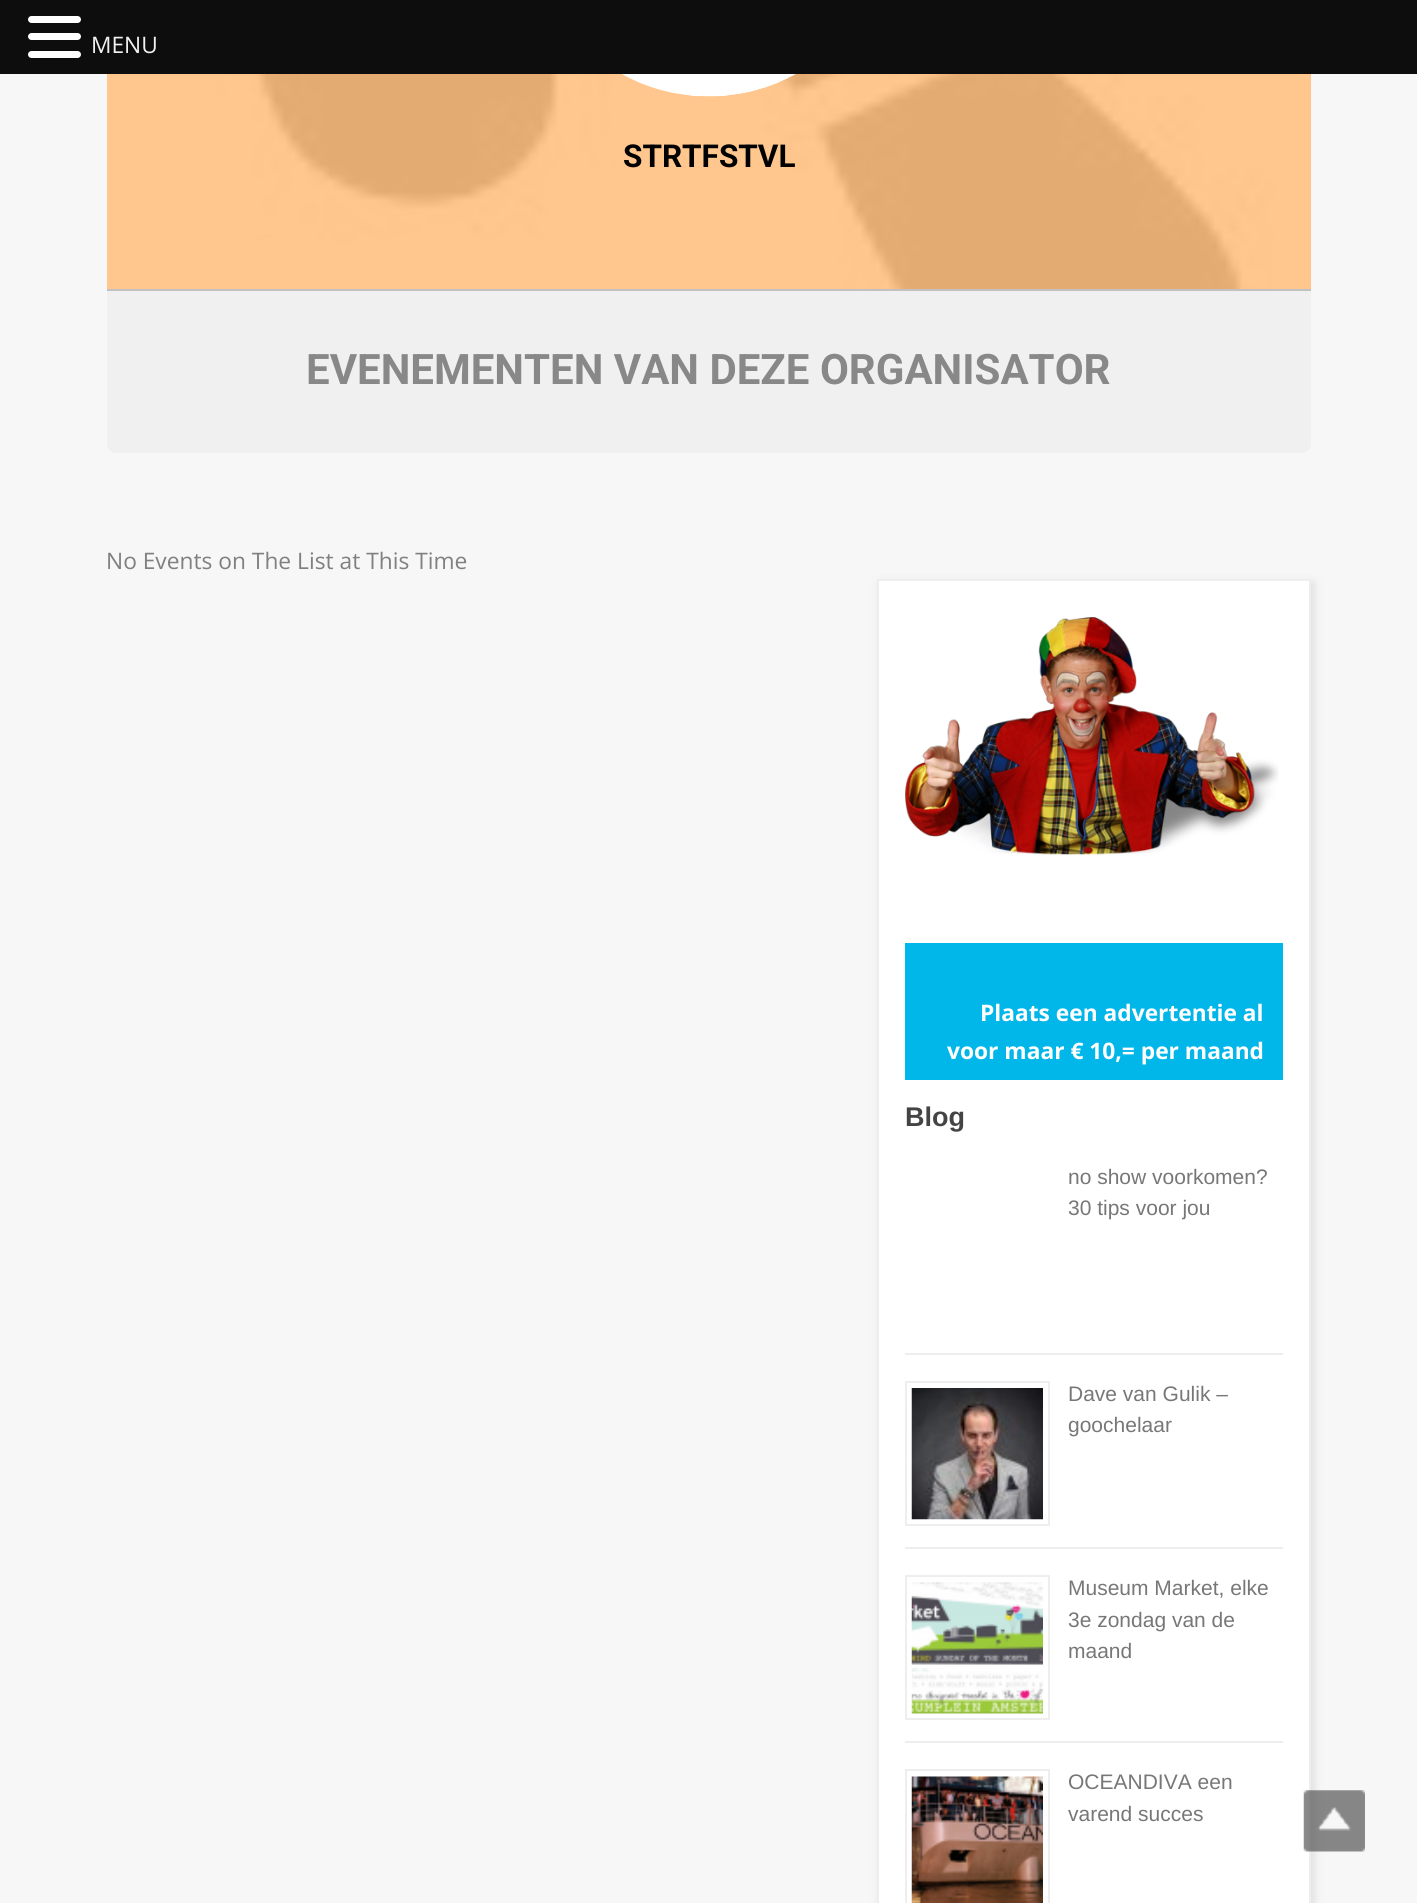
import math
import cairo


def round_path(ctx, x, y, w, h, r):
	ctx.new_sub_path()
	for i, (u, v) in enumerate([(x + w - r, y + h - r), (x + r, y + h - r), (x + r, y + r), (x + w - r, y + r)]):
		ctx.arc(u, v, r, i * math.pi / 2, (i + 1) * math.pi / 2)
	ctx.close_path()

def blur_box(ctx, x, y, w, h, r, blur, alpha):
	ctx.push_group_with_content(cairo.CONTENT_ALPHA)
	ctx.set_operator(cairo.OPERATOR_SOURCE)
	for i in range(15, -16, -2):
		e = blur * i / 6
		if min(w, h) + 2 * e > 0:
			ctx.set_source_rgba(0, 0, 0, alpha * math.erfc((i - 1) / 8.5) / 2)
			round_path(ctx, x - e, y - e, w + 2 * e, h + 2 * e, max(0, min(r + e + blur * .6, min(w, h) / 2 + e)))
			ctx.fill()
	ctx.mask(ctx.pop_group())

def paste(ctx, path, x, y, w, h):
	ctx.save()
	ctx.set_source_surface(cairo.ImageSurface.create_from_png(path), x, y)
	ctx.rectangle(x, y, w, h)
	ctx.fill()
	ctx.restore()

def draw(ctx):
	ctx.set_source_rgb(0.965, 0.965, 0.965)
	ctx.paint()
	ctx.set_source_rgb(0.984, 0.761, 0.541)
	ctx.rectangle(1310, 74, 1, 215)
	ctx.fill()
	paste(ctx, 'media/1.png', 107, 74, 1204, 215)
	paste(ctx, 'media/2.png', 622, 74, 174, 23)
	round_path(ctx, 531.5, -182.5, 355, 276, 177.5)
	ctx.set_source_rgb(1, 1, 1)
	ctx.set_line_width(5)
	ctx.stroke()
	ctx.set_source_rgb(0.051, 0.051, 0.051)
	ctx.rectangle(0, 0, 1417, 74)
	ctx.fill()
	ctx.set_source_rgb(1, 1, 1)
	round_path(ctx, 28, 16, 53, 7, 3.5)
	ctx.fill()
	round_path(ctx, 28, 33, 53, 7, 3.5)
	ctx.fill()
	round_path(ctx, 28, 51, 53, 7, 3.5)
	ctx.fill()
	ctx.select_font_face('Open Sans')
	ctx.set_font_size(22.75)
	ctx.set_source_rgb(0.949, 0.949, 0.949)
	ctx.move_to(91, 53)
	ctx.show_text('MENU')
	ctx.select_font_face('Roboto', cairo.FONT_SLANT_NORMAL, cairo.FONT_WEIGHT_BOLD)
	ctx.set_font_size(31.5)
	ctx.set_source_rgb(0, 0, 0)
	ctx.move_to(623, 167)
	ctx.show_text('STRTFSTVL')
	ctx.set_source_rgb(0.941, 0.941, 0.941)
	ctx.new_path()
	ctx.move_to(107, 289)
	ctx.line_to(1311, 289)
	ctx.line_to(1311, 444)
	ctx.curve_to(1311, 449, 1307, 453, 1302, 453)
	ctx.line_to(116, 453)
	ctx.curve_to(111, 453, 107, 449, 107, 444)
	ctx.close_path()
	ctx.fill()
	ctx.set_source_rgb(0.757, 0.757, 0.757)
	ctx.rectangle(107, 289, 1204, 2)
	ctx.fill()
	ctx.set_font_size(42)
	ctx.set_source_rgb(0.533, 0.533, 0.533)
	ctx.move_to(306, 384)
	ctx.show_text('EVENEMENTEN VAN DEZE ORGANISATOR')
	ctx.select_font_face('Open Sans')
	ctx.set_font_size(22.75)
	ctx.set_source_rgb(0.502, 0.502, 0.502)
	ctx.move_to(106, 569)
	ctx.show_text('No Events on The List at This Time')
	ctx.set_source_rgb(0.867, 0.867, 0.867)
	blur_box(ctx, 880, 583, 434, 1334, 0, 4.5, 1)
	ctx.set_source_rgb(1, 1, 1)
	ctx.rectangle(878, 580, 432, 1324)
	ctx.fill_preserve()
	ctx.set_source_rgb(0.933, 0.933, 0.933)
	ctx.set_line_width(2)
	ctx.stroke()
	paste(ctx, 'media/3.png', 905, 617, 374, 238)
	ctx.set_source_rgb(0.004, 0.714, 0.91)
	ctx.rectangle(905, 943, 378, 137)
	ctx.fill()
	ctx.select_font_face('Open Sans', cairo.FONT_SLANT_NORMAL, cairo.FONT_WEIGHT_BOLD)
	ctx.set_source_rgb(1, 1, 1)
	ctx.move_to(980, 1021)
	ctx.show_text('Plaats een advertentie al')
	ctx.move_to(947, 1059)
	ctx.show_text('voor maar € 10,= per maand')
	ctx.select_font_face('Liberation Sans', cairo.FONT_SLANT_NORMAL, cairo.FONT_WEIGHT_BOLD)
	ctx.set_font_size(27)
	ctx.set_source_rgb(0.267, 0.267, 0.267)
	ctx.move_to(905, 1126)
	ctx.show_text('Blog')
	ctx.set_source_rgb(0.933, 0.933, 0.933)
	ctx.rectangle(905, 1353, 378, 2)
	ctx.fill()
	ctx.select_font_face('Liberation Sans')
	ctx.set_font_size(21)
	ctx.set_source_rgb(0.467, 0.467, 0.467)
	ctx.move_to(1068, 1184)
	ctx.show_text('no show voorkomen?')
	ctx.move_to(1068, 1215)
	ctx.show_text('30 tips voor jou')
	ctx.set_source_rgb(0.933, 0.933, 0.933)
	ctx.rectangle(905, 1547, 378, 2)
	ctx.fill()
	ctx.rectangle(906, 1382, 143, 143)
	ctx.stroke()
	paste(ctx, 'media/4.png', 911, 1388, 132, 132)
	ctx.set_source_rgb(0.467, 0.467, 0.467)
	ctx.move_to(1068, 1401)
	ctx.show_text('Dave van Gulik –')
	ctx.move_to(1068, 1432)
	ctx.show_text('goochelaar')
	ctx.set_source_rgb(0.933, 0.933, 0.933)
	ctx.rectangle(905, 1741, 378, 2)
	ctx.fill()
	ctx.rectangle(906, 1576, 143, 143)
	ctx.stroke()
	paste(ctx, 'media/5.png', 911, 1582, 132, 132)
	ctx.set_source_rgb(0.467, 0.467, 0.467)
	for x, y, s in [
		(1068, 1595, 'Museum Market, elke'),
		(1068, 1627, '3e zondag van de'),
		(1068, 1658, 'maand'),
	]:
		ctx.move_to(x, y)
		ctx.show_text(s)
	ctx.rectangle(906, 1770, 143, 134)
	ctx.set_source_rgb(0.933, 0.933, 0.933)
	ctx.stroke()
	paste(ctx, 'media/6.png', 911, 1776, 132, 127)
	ctx.set_source_rgb(0.467, 0.467, 0.467)
	ctx.move_to(1068, 1789)
	ctx.show_text('OCEANDIVA een')
	ctx.move_to(1068, 1821)
	ctx.show_text('varend succes')
	paste(ctx, 'media/7.png', 1303, 1790, 62, 62)


surface = cairo.ImageSurface(cairo.FORMAT_RGB24, 1417, 1903)
ctx = cairo.Context(surface)
options = cairo.FontOptions()
options.set_hint_metrics(cairo.HINT_METRICS_OFF)
options.set_hint_style(cairo.HINT_STYLE_NONE)
ctx.set_font_options(options)
ctx.set_miter_limit(4)
draw(ctx)
surface.write_to_png('image.png')
